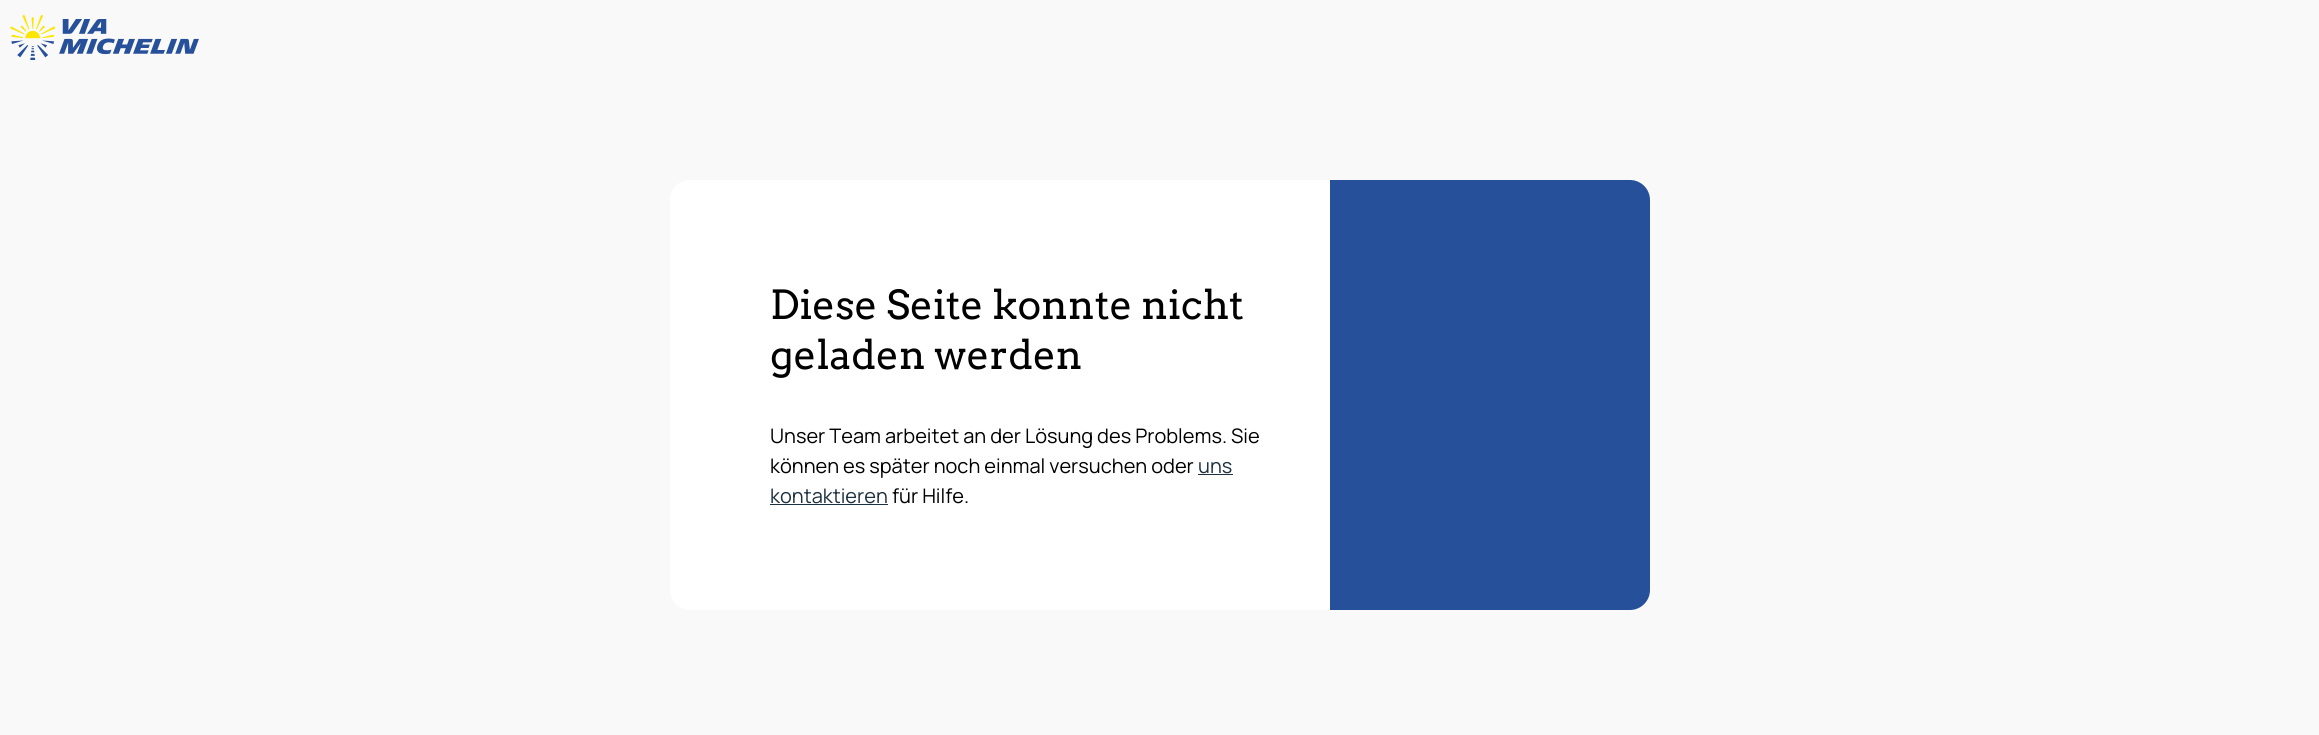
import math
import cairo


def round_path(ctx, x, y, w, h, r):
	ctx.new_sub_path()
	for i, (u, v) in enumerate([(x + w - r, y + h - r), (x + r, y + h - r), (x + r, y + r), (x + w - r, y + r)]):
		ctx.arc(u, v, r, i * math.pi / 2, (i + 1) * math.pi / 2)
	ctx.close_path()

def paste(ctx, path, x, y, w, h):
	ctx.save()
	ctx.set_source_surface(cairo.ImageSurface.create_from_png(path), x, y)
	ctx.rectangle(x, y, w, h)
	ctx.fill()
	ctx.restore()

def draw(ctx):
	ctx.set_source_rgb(0.976, 0.976, 0.976)
	ctx.paint()
	paste(ctx, 'media/1.png', 10, 15, 189, 45)
	ctx.set_source_rgb(1, 1, 1)
	round_path(ctx, 670, 180, 980, 430, 20)
	ctx.fill()
	ctx.select_font_face('Arvo')
	ctx.set_font_size(40)
	ctx.set_source_rgb(0, 0, 0)
	ctx.move_to(770, 319)
	ctx.show_text('Diese Seite konnte nicht')
	ctx.move_to(770, 369)
	ctx.show_text('geladen werden')
	ctx.select_font_face('Manrope ExtraLight')
	ctx.set_font_size(20)
	ctx.move_to(770, 443)
	ctx.show_text('Unser Team arbeitet an der Lösung des Problems. Sie')
	ctx.move_to(770, 473)
	ctx.show_text('können es später noch einmal versuchen oder')
	ctx.set_source_rgb(0.114, 0.192, 0.251)
	ctx.move_to(1198, 473)
	ctx.show_text('uns')
	ctx.rectangle(1198, 474, 35, 1)
	ctx.fill()
	ctx.move_to(770, 503)
	ctx.show_text('kontaktieren')
	ctx.rectangle(770, 504, 118, 1)
	ctx.fill()
	ctx.set_source_rgb(0, 0, 0)
	ctx.move_to(892, 503)
	ctx.show_text('für Hilfe.')
	ctx.set_source_rgb(0.153, 0.314, 0.608)
	ctx.new_path()
	ctx.move_to(1330, 180)
	ctx.line_to(1630, 180)
	ctx.curve_to(1641, 180, 1650, 189, 1650, 200)
	ctx.line_to(1650, 590)
	ctx.curve_to(1650, 601, 1641, 610, 1630, 610)
	ctx.line_to(1330, 610)
	ctx.close_path()
	ctx.fill()


surface = cairo.ImageSurface(cairo.FORMAT_RGB24, 2319, 735)
ctx = cairo.Context(surface)
options = cairo.FontOptions()
options.set_hint_metrics(cairo.HINT_METRICS_OFF)
options.set_hint_style(cairo.HINT_STYLE_NONE)
ctx.set_font_options(options)
ctx.set_miter_limit(4)
draw(ctx)
surface.write_to_png('image.png')
